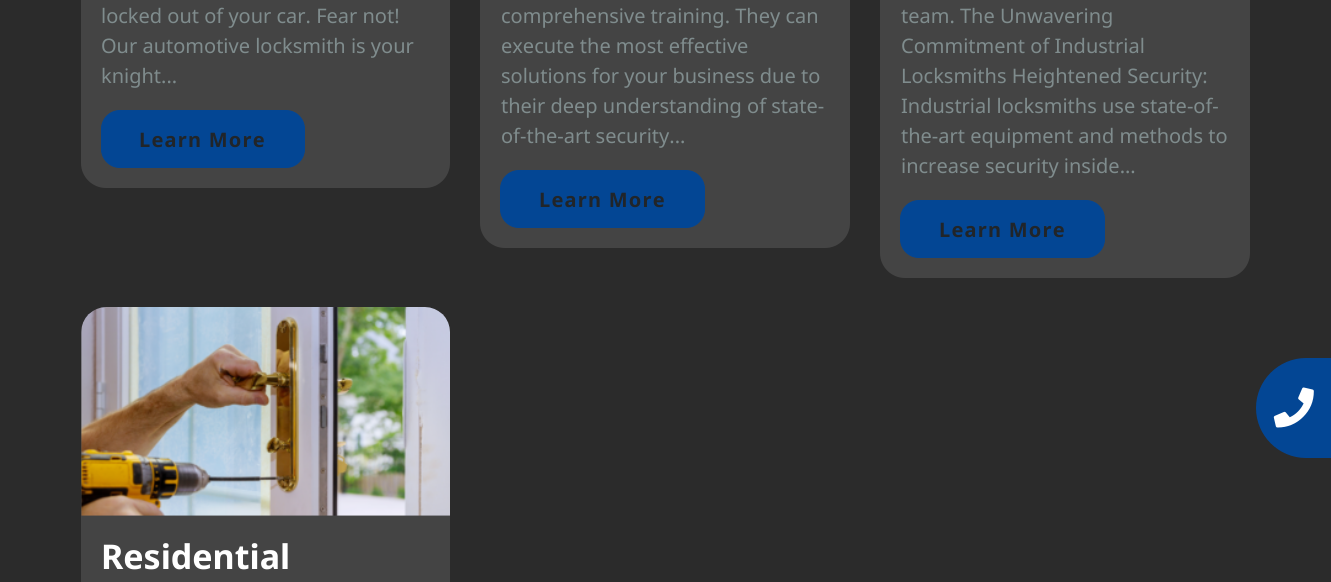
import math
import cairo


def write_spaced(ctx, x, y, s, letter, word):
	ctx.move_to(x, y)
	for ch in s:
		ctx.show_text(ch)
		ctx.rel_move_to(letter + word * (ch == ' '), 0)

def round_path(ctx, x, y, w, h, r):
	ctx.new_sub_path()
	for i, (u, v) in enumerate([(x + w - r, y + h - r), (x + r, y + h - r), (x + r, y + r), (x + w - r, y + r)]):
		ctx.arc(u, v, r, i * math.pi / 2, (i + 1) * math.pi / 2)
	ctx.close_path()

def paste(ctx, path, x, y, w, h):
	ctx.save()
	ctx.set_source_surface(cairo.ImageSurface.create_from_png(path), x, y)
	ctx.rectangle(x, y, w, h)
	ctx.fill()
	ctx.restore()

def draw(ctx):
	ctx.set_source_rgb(0.169, 0.169, 0.169)
	ctx.paint()
	ctx.set_source_rgb(0.267, 0.267, 0.267)
	round_path(ctx, 81, -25, 369, 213, 25)
	ctx.fill()
	ctx.select_font_face('Noto Sans')
	ctx.set_font_size(20)
	ctx.set_source_rgb(0.498, 0.549, 0.553)
	for x, y, s in [
		(101, 23, 'locked out of your car. Fear not!'),
		(101, 53, 'Our automotive locksmith is your'),
		(101, 83, 'knight...'),
	]:
		ctx.move_to(x, y)
		ctx.show_text(s)
	ctx.set_source_rgb(0.012, 0.275, 0.58)
	round_path(ctx, 101.5, 110.5, 203, 57, 18.5)
	ctx.fill_preserve()
	ctx.set_line_width(1)
	ctx.stroke()
	ctx.select_font_face('Noto Sans', cairo.FONT_SLANT_NORMAL, cairo.FONT_WEIGHT_BOLD)
	ctx.set_source_rgb(0.129, 0.145, 0.161)
	write_spaced(ctx, 139, 147, 'Learn More', 1.25, 0)
	ctx.set_source_rgb(0.267, 0.267, 0.267)
	round_path(ctx, 480, -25, 370, 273, 25)
	ctx.fill()
	ctx.select_font_face('Noto Sans')
	ctx.set_source_rgb(0.498, 0.549, 0.553)
	for x, y, s in [
		(501, 23, 'comprehensive training. They can'),
		(501, 53, 'execute the most effective'),
		(501, 83, 'solutions for your business due to'),
		(501, 113, 'their deep understanding of state-'),
		(501, 143, 'of-the-art security...'),
	]:
		ctx.move_to(x, y)
		ctx.show_text(s)
	ctx.set_source_rgb(0.012, 0.275, 0.58)
	round_path(ctx, 500.5, 170.5, 204, 57, 18.5)
	ctx.fill_preserve()
	ctx.stroke()
	ctx.select_font_face('Noto Sans', cairo.FONT_SLANT_NORMAL, cairo.FONT_WEIGHT_BOLD)
	ctx.set_source_rgb(0.129, 0.145, 0.161)
	write_spaced(ctx, 539, 207, 'Learn More', 1.25, 0)
	ctx.set_source_rgb(0.267, 0.267, 0.267)
	round_path(ctx, 880, -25, 370, 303, 25)
	ctx.fill()
	ctx.select_font_face('Noto Sans')
	ctx.set_source_rgb(0.498, 0.549, 0.553)
	for x, y, s in [
		(901, 23, 'team. The Unwavering'),
		(901, 53, 'Commitment of Industrial'),
		(901, 83, 'Locksmiths Heightened Security:'),
		(901, 113, 'Industrial locksmiths use state-of-'),
		(901, 143, 'the-art equipment and methods to'),
		(901, 173, 'increase security inside...'),
	]:
		ctx.move_to(x, y)
		ctx.show_text(s)
	ctx.set_source_rgb(0.012, 0.275, 0.58)
	round_path(ctx, 900.5, 200.5, 204, 57, 18.5)
	ctx.fill_preserve()
	ctx.stroke()
	ctx.select_font_face('Noto Sans', cairo.FONT_SLANT_NORMAL, cairo.FONT_WEIGHT_BOLD)
	ctx.set_source_rgb(0.129, 0.145, 0.161)
	write_spaced(ctx, 939, 237, 'Learn More', 1.25, 0)
	ctx.set_source_rgb(0.267, 0.267, 0.267)
	round_path(ctx, 81, 308, 369, 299, 25)
	ctx.fill()
	paste(ctx, 'media/1.png', 81, 307, 369, 209)
	ctx.set_font_size(34)
	ctx.set_source_rgb(1, 1, 1)
	ctx.move_to(101, 569)
	ctx.show_text('Residential')
	ctx.set_source_rgb(0.012, 0.275, 0.58)
	ctx.new_path()
	ctx.move_to(1306, 358)
	ctx.line_to(1331, 358)
	ctx.line_to(1331, 458)
	ctx.line_to(1306, 458)
	ctx.curve_to(1278.5, 458, 1256, 435.5, 1256, 408)
	ctx.curve_to(1256, 380.5, 1278.5, 358, 1306, 358)
	ctx.close_path()
	ctx.fill()
	paste(ctx, 'media/2.png', 1273, 387, 41, 41)


surface = cairo.ImageSurface(cairo.FORMAT_RGB24, 1331, 582)
ctx = cairo.Context(surface)
options = cairo.FontOptions()
options.set_hint_metrics(cairo.HINT_METRICS_OFF)
options.set_hint_style(cairo.HINT_STYLE_NONE)
ctx.set_font_options(options)
ctx.set_miter_limit(4)
draw(ctx)
surface.write_to_png('image.png')
